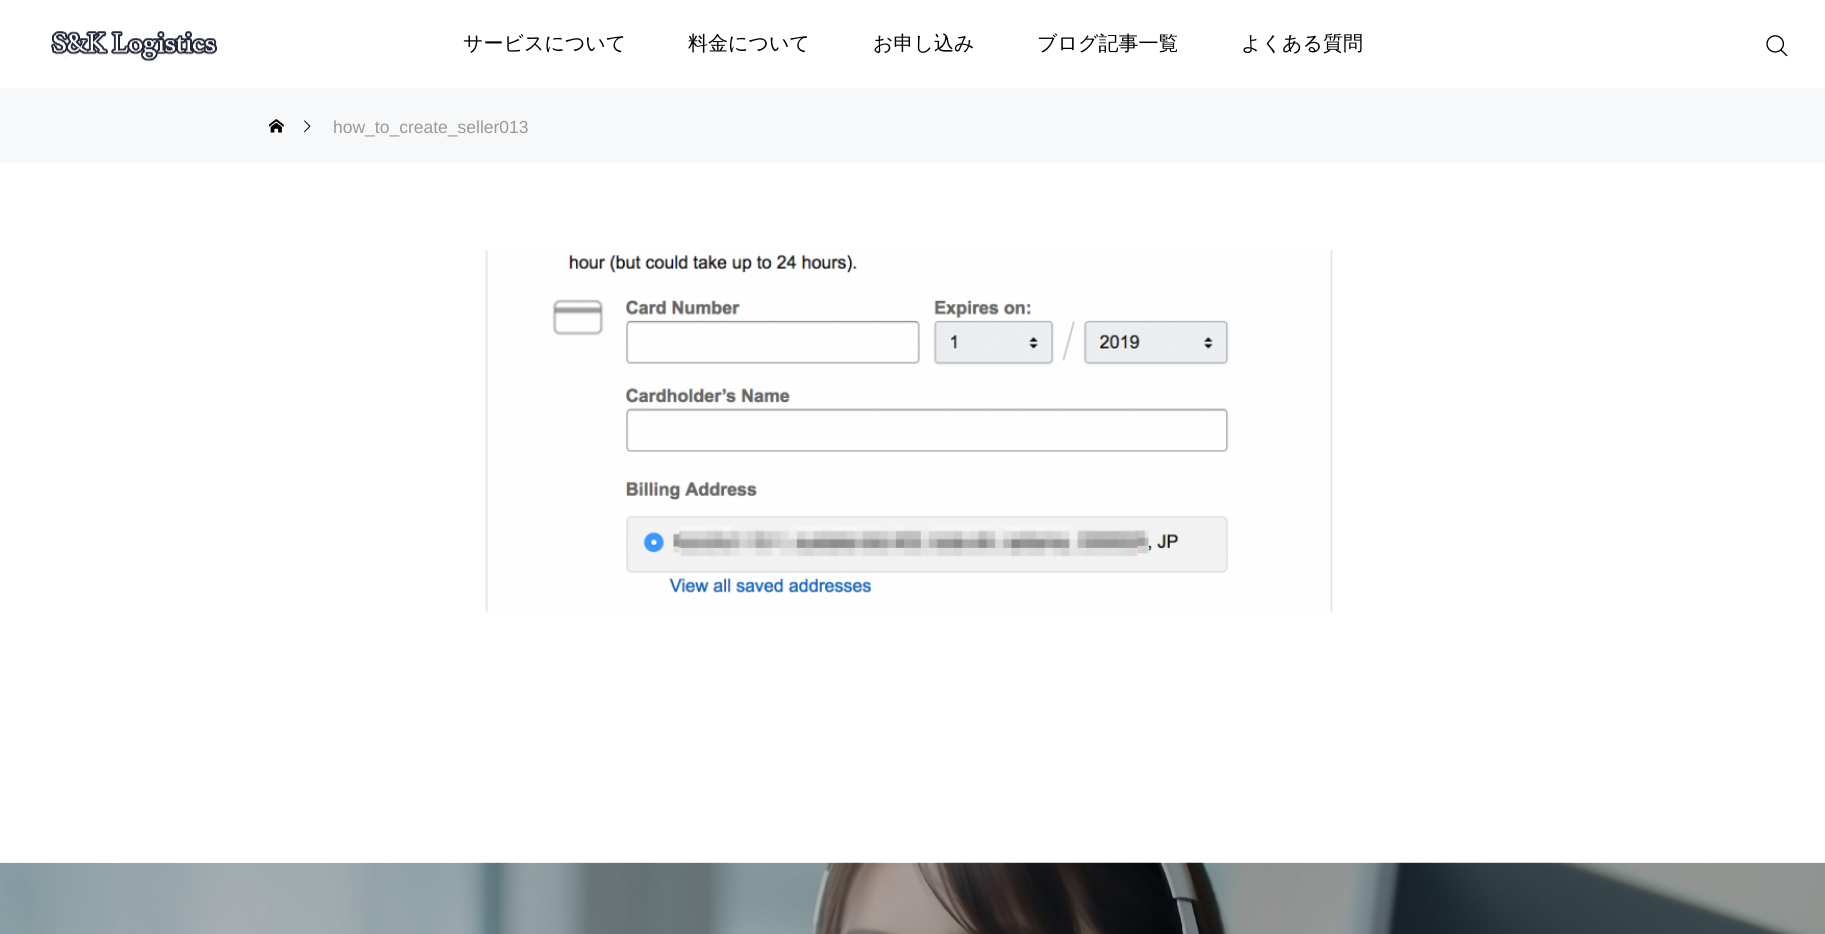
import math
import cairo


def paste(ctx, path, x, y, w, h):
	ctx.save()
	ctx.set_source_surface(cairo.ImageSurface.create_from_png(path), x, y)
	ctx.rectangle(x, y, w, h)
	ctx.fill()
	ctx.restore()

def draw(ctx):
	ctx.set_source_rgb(1, 1, 1)
	ctx.paint()
	paste(ctx, 'media/1.png', 51, 31, 166, 31)
	ctx.select_font_face('WenQuanYi Zen Hei Medium')
	ctx.set_font_size(20)
	ctx.set_source_rgb(0, 0, 0)
	for x, y, s in [
		(463, 50, 'サービスについて'),
		(688, 50, '料金について'),
		(873, 50, 'お申し込み'),
		(1037, 50, 'ブログ記事一覧'),
		(1241, 50, 'よくある質問'),
	]:
		ctx.move_to(x, y)
		ctx.show_text(s)
	paste(ctx, 'media/2.png', 1766, 35, 22, 22)
	ctx.set_source_rgb(0.965, 0.969, 0.973)
	ctx.rectangle(0, 88, 1825, 75)
	ctx.fill()
	paste(ctx, 'media/3.png', 269, 119, 15, 14)
	paste(ctx, 'media/4.png', 304, 120, 7, 13)
	ctx.select_font_face('Liberation Sans')
	ctx.set_font_size(17.5)
	ctx.set_source_rgb(0.6, 0.6, 0.6)
	ctx.move_to(333, 133)
	ctx.show_text('how_to_create_seller013')
	paste(ctx, 'media/5.png', 485, 250, 848, 363)
	paste(ctx, 'media/6.png', 0, 862, 1825, 72)


surface = cairo.ImageSurface(cairo.FORMAT_RGB24, 1825, 934)
ctx = cairo.Context(surface)
options = cairo.FontOptions()
options.set_hint_metrics(cairo.HINT_METRICS_OFF)
options.set_hint_style(cairo.HINT_STYLE_NONE)
ctx.set_font_options(options)
ctx.set_miter_limit(4)
draw(ctx)
surface.write_to_png('image.png')
